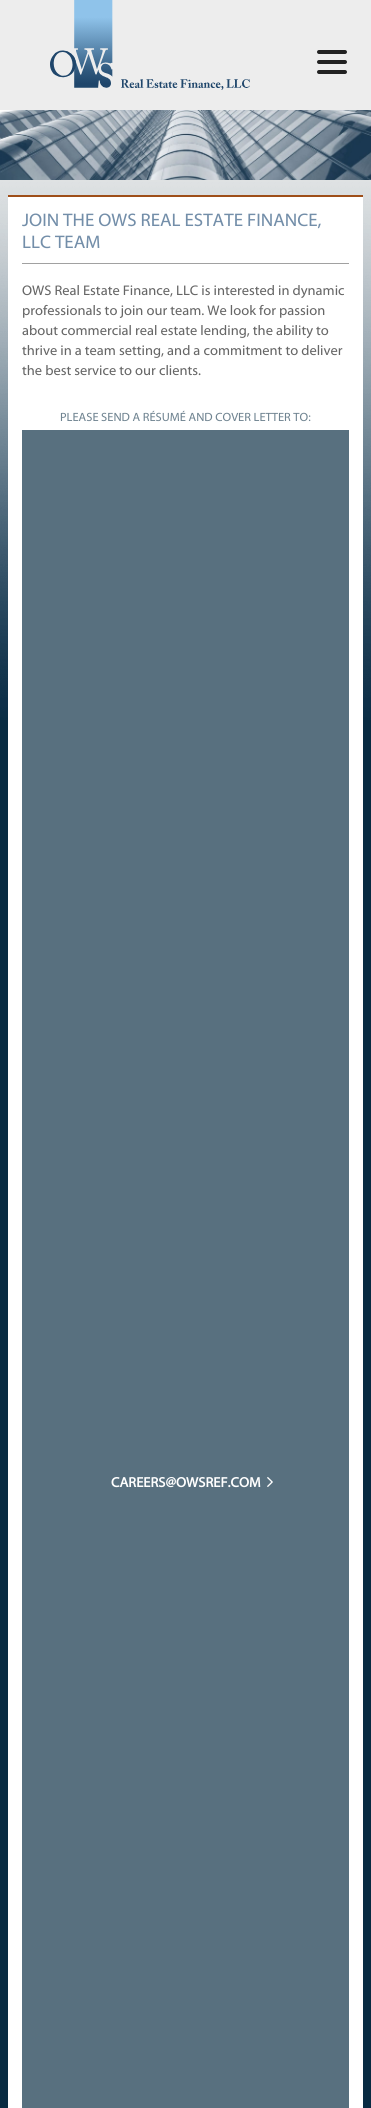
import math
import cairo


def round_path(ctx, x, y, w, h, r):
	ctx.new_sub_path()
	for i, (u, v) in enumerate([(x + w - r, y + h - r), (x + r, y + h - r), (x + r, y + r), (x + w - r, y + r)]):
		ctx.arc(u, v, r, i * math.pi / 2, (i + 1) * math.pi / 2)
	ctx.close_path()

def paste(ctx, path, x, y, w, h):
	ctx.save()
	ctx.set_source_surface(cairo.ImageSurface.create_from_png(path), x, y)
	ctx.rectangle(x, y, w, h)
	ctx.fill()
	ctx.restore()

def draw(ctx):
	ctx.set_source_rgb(0.035, 0.169, 0.259)
	ctx.paint()
	paste(ctx, 'media/1.png', 0, 0, 371, 720)
	ctx.set_source_rgb(0.133, 0.133, 0.133)
	round_path(ctx, 317, 50, 30, 4, 2)
	ctx.fill()
	round_path(ctx, 317, 60, 30, 4, 2)
	ctx.fill()
	round_path(ctx, 317, 70, 30, 4, 2)
	ctx.fill()
	paste(ctx, 'media/2.png', 50, 0, 200, 90)
	paste(ctx, 'media/3.png', 0, 110, 371, 70)
	ctx.set_source_rgb(1, 1, 1)
	ctx.rectangle(8, 197, 355, 1911)
	ctx.fill()
	ctx.set_source_rgb(0.62, 0.306, 0.098)
	ctx.rectangle(8, 195, 355, 2)
	ctx.fill()
	ctx.set_source_rgb(0.631, 0.631, 0.631)
	ctx.rectangle(22, 263, 327, 1)
	ctx.fill()
	ctx.select_font_face('Myriad')
	ctx.set_font_size(18.25)
	ctx.set_source_rgb(0.451, 0.557, 0.663)
	ctx.move_to(22, 226)
	ctx.show_text('JOIN THE OWS REAL ESTATE FINANCE,')
	ctx.move_to(22, 248)
	ctx.show_text('LLC TEAM')
	ctx.set_font_size(14)
	ctx.set_source_rgb(0.4, 0.4, 0.4)
	for x, y, s in [
		(22, 295, 'OWS Real Estate Finance, LLC is interested in dynamic'),
		(22, 315, 'professionals to join our team. We look for passion'),
		(22, 335, 'about commercial real estate lending, the ability to'),
		(22, 355, 'thrive in a team setting, and a commitment to deliver'),
		(22, 375, 'the best service to our clients.'),
	]:
		ctx.move_to(x, y)
		ctx.show_text(s)
	ctx.set_font_size(12)
	ctx.set_source_rgb(0.439, 0.518, 0.569)
	ctx.move_to(60, 421)
	ctx.show_text('PLEASE SEND A RÉSUMÉ AND COVER LETTER TO:')
	ctx.set_source_rgb(0.345, 0.439, 0.498)
	ctx.rectangle(22, 430, 327, 1678)
	ctx.fill()
	ctx.select_font_face('Myriad', cairo.FONT_SLANT_NORMAL, cairo.FONT_WEIGHT_BOLD)
	ctx.set_font_size(14)
	ctx.set_source_rgb(1, 1, 1)
	ctx.move_to(111, 1487)
	ctx.show_text('CAREERS@OWSREF.COM')
	paste(ctx, 'media/4.png', 267, 1477, 6, 10)


surface = cairo.ImageSurface(cairo.FORMAT_RGB24, 371, 2108)
ctx = cairo.Context(surface)
options = cairo.FontOptions()
options.set_hint_metrics(cairo.HINT_METRICS_OFF)
options.set_hint_style(cairo.HINT_STYLE_NONE)
ctx.set_font_options(options)
ctx.set_miter_limit(4)
draw(ctx)
surface.write_to_png('image.png')
